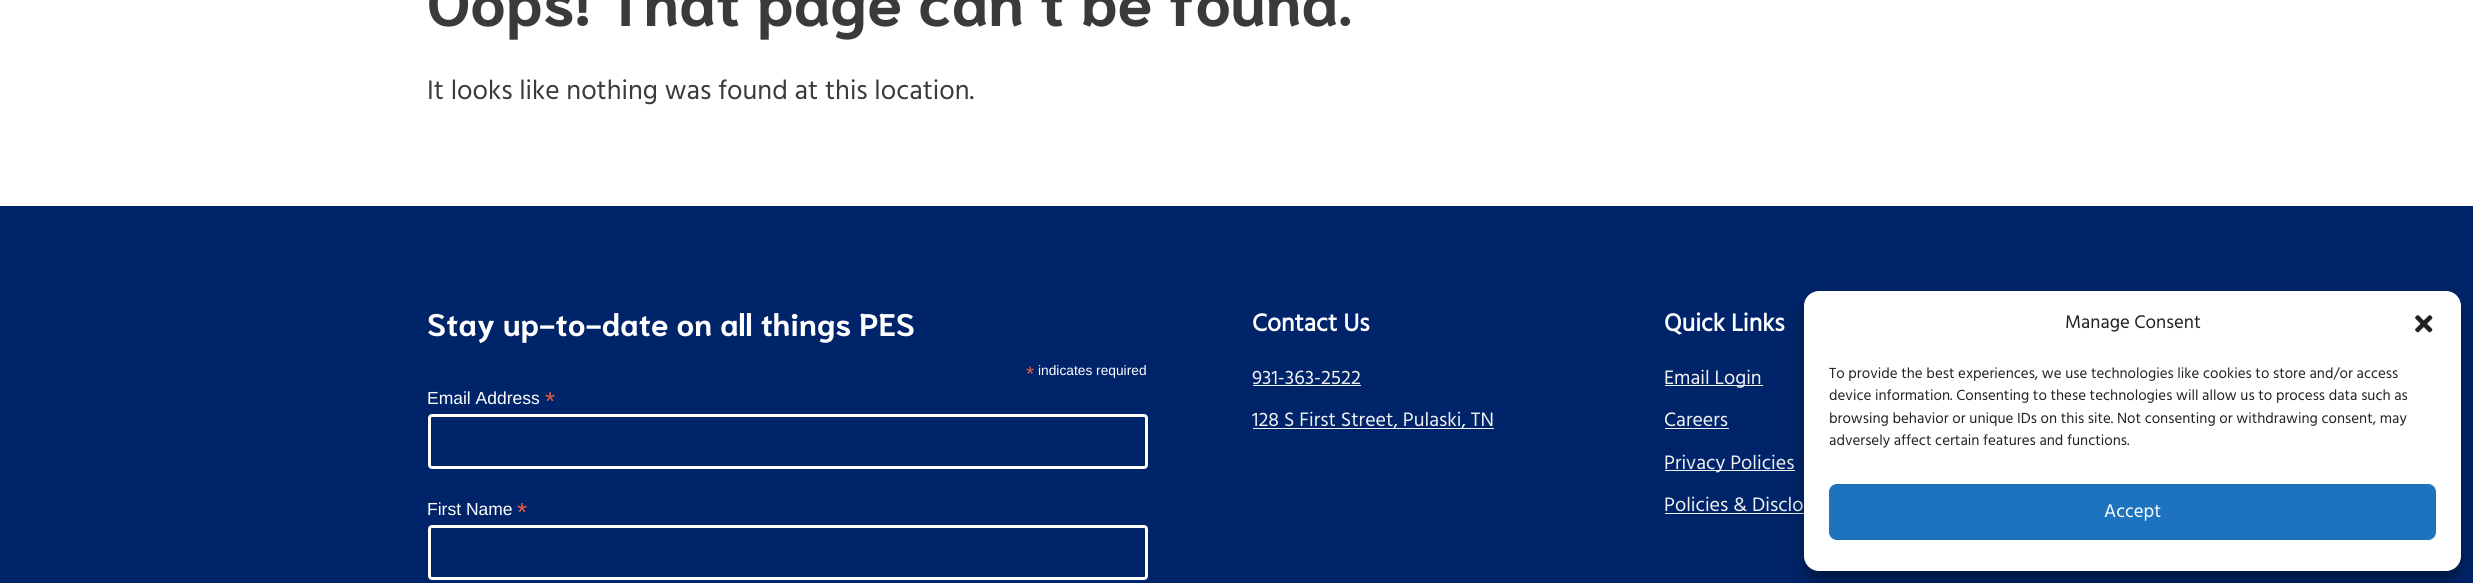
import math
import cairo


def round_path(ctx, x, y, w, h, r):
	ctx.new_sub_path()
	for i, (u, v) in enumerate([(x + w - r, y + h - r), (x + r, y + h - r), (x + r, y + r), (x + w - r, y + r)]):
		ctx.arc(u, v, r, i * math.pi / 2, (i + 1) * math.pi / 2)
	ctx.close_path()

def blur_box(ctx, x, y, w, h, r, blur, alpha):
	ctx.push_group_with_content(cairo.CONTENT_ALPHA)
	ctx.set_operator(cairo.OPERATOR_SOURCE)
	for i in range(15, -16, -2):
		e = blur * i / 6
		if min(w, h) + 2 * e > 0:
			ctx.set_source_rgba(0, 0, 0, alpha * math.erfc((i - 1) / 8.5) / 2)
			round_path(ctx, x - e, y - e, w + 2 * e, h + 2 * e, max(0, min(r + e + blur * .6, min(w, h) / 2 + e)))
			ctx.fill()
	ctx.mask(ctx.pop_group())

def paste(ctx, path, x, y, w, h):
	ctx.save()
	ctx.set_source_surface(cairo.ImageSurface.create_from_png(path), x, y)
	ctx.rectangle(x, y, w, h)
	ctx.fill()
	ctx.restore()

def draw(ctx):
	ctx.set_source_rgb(1, 1, 1)
	ctx.paint()
	ctx.select_font_face('Niramit', cairo.FONT_SLANT_NORMAL, cairo.FONT_WEIGHT_BOLD)
	ctx.set_font_size(62.5)
	ctx.set_source_rgb(0.227, 0.227, 0.231)
	ctx.move_to(427, 26)
	ctx.show_text('Oops! That page can’t be found.')
	ctx.select_font_face('Hind')
	ctx.set_font_size(27.5)
	ctx.move_to(427, 99)
	ctx.show_text('It looks like nothing was found at this location.')
	ctx.set_source_rgb(0, 0.141, 0.412)
	ctx.rectangle(0, 206, 2473, 377)
	ctx.fill()
	ctx.select_font_face('Niramit', cairo.FONT_SLANT_NORMAL, cairo.FONT_WEIGHT_BOLD)
	ctx.set_font_size(31.25)
	ctx.set_source_rgb(1, 1, 1)
	ctx.move_to(427, 336)
	ctx.show_text('Stay up-to-date on all things PES')
	ctx.select_font_face('Liberation Sans')
	ctx.set_font_size(21)
	ctx.set_source_rgb(0.91, 0.361, 0.255)
	ctx.move_to(1026, 381)
	ctx.show_text('*')
	ctx.set_font_size(13.75)
	ctx.set_source_rgb(1, 1, 1)
	ctx.move_to(1038, 375)
	ctx.show_text('indicates required')
	ctx.set_font_size(17.5)
	ctx.move_to(427, 404)
	ctx.show_text('Email Address')
	ctx.set_font_size(26)
	ctx.set_source_rgb(0.91, 0.361, 0.255)
	ctx.move_to(545, 410)
	ctx.show_text('*')
	round_path(ctx, 429.5, 415.5, 717, 52, 2.5)
	ctx.set_source_rgb(1, 1, 1)
	ctx.set_line_width(3)
	ctx.stroke()
	ctx.set_font_size(17.5)
	ctx.move_to(427, 515)
	ctx.show_text('First Name')
	ctx.set_font_size(26)
	ctx.set_source_rgb(0.91, 0.361, 0.255)
	ctx.move_to(517, 521)
	ctx.show_text('*')
	round_path(ctx, 429.5, 526.5, 717, 52, 2.5)
	ctx.set_source_rgb(1, 1, 1)
	ctx.stroke()
	ctx.select_font_face('Hind', cairo.FONT_SLANT_NORMAL, cairo.FONT_WEIGHT_BOLD)
	ctx.set_font_size(25)
	ctx.move_to(1252, 331)
	ctx.show_text('Contact Us')
	ctx.select_font_face('Hind')
	ctx.set_font_size(20)
	ctx.set_source_rgb(0.945, 0.945, 0.945)
	ctx.move_to(1252, 384)
	ctx.show_text('931-363-2522')
	ctx.rectangle(1253, 385, 108, 1)
	ctx.fill()
	ctx.rectangle(1253, 428, 241, 1)
	ctx.fill()
	ctx.move_to(1252, 426)
	ctx.show_text('128 S First Street, Pulaski, TN')
	ctx.select_font_face('Hind', cairo.FONT_SLANT_NORMAL, cairo.FONT_WEIGHT_BOLD)
	ctx.set_font_size(25)
	ctx.set_source_rgb(1, 1, 1)
	ctx.move_to(1664, 331)
	ctx.show_text('Quick Links')
	ctx.set_source_rgb(0.945, 0.945, 0.945)
	ctx.rectangle(1665, 385, 98, 1)
	ctx.fill()
	ctx.select_font_face('Hind')
	ctx.set_font_size(20)
	ctx.move_to(1664, 384)
	ctx.show_text('Email Login')
	ctx.move_to(1664, 426)
	ctx.show_text('Careers')
	ctx.rectangle(1665, 428, 64, 1)
	ctx.fill()
	ctx.rectangle(1665, 470, 130, 1)
	ctx.fill()
	ctx.move_to(1664, 469)
	ctx.show_text('Privacy Policies')
	ctx.move_to(1664, 511)
	ctx.show_text('Policies & Disclo')
	ctx.rectangle(1665, 513, 139, 1)
	ctx.fill()
	ctx.set_source_rgb(0, 0, 0)
	blur_box(ctx, 1804, 299, 657, 280, 15, 4, 0.23)
	blur_box(ctx, 1804, 304, 657, 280, 15, 12.5, 0.19)
	ctx.set_source_rgb(1, 1, 1)
	round_path(ctx, 1804, 291, 657, 280, 15)
	ctx.fill()
	ctx.set_font_size(18.75)
	ctx.set_source_rgb(0.133, 0.133, 0.133)
	ctx.move_to(2065, 328)
	ctx.show_text('Manage Consent')
	paste(ctx, 'media/1.png', 2415, 315, 18, 18)
	ctx.set_font_size(15)
	for x, y, s in [
		(1829, 378, 'To provide the best experiences, we use technologies like cookies to store and/or access'),
		(1829, 400, 'device information. Consenting to these technologies will allow us to process data such as'),
		(1829, 423, 'browsing behavior or unique IDs on this site. Not consenting or withdrawing consent, may'),
		(1829, 445, 'adversely affect certain features and functions.'),
	]:
		ctx.move_to(x, y)
		ctx.show_text(s)
	ctx.set_source_rgb(0.118, 0.451, 0.745)
	round_path(ctx, 1829.5, 484.5, 606, 55, 7.5)
	ctx.fill_preserve()
	ctx.set_line_width(1)
	ctx.stroke()
	ctx.set_font_size(18.75)
	ctx.set_source_rgb(1, 1, 1)
	ctx.move_to(2104, 517)
	ctx.show_text('Accept')


surface = cairo.ImageSurface(cairo.FORMAT_RGB24, 2473, 583)
ctx = cairo.Context(surface)
options = cairo.FontOptions()
options.set_hint_metrics(cairo.HINT_METRICS_OFF)
options.set_hint_style(cairo.HINT_STYLE_NONE)
ctx.set_font_options(options)
ctx.set_miter_limit(4)
draw(ctx)
surface.write_to_png('image.png')
